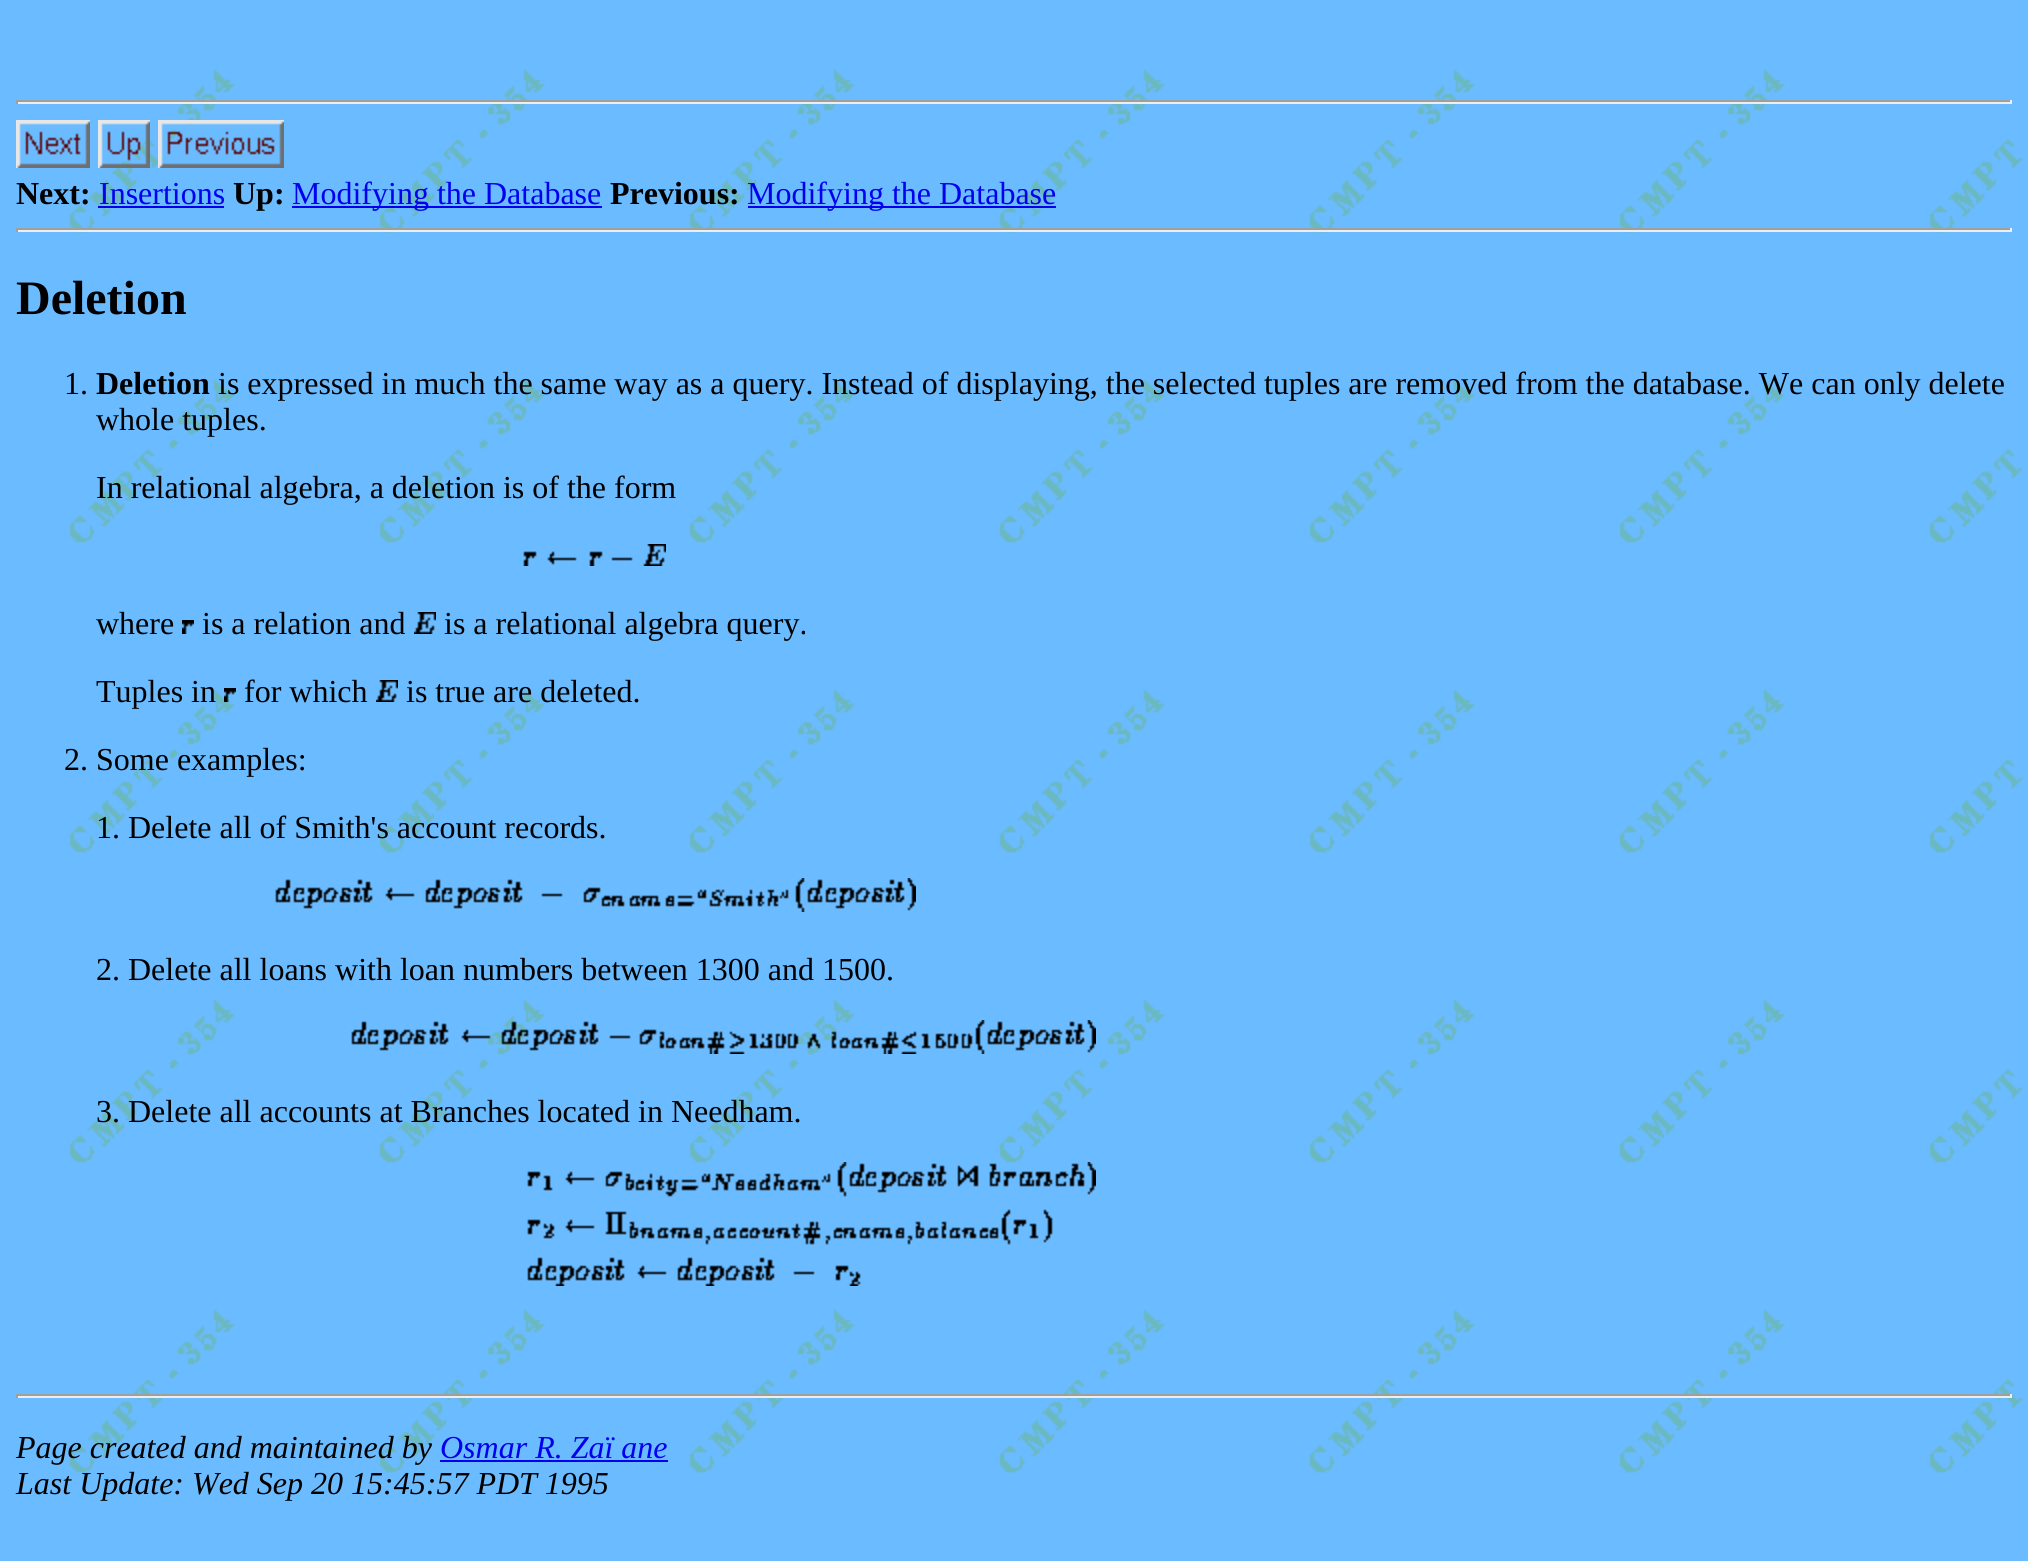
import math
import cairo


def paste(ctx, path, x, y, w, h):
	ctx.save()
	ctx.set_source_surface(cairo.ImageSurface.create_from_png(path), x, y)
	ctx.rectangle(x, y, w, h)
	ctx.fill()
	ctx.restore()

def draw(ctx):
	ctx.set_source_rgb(1, 1, 1)
	ctx.paint()
	paste(ctx, 'media/1.png', 0, 0, 2028, 1561)
	ctx.set_source_rgb(0.624, 0.624, 0.624)
	ctx.rectangle(16, 100, 1996, 2)
	ctx.fill()
	ctx.set_source_rgb(0.933, 0.933, 0.933)
	ctx.rectangle(2010, 100, 2, 4)
	ctx.rectangle(16, 102, 1996, 2)
	ctx.fill()
	ctx.set_source_rgb(0.624, 0.624, 0.624)
	ctx.rectangle(16, 100, 2, 4)
	ctx.fill()
	paste(ctx, 'media/2.png', 16, 120, 74, 48)
	paste(ctx, 'media/3.png', 98, 120, 52, 48)
	paste(ctx, 'media/4.png', 158, 120, 126, 48)
	ctx.select_font_face('Liberation Serif', cairo.FONT_SLANT_NORMAL, cairo.FONT_WEIGHT_BOLD)
	ctx.set_font_size(32)
	ctx.set_source_rgb(0, 0, 0)
	ctx.move_to(16, 204)
	ctx.show_text('Next:')
	ctx.select_font_face('Liberation Serif')
	ctx.set_source_rgb(0, 0, 0.933)
	ctx.move_to(99, 204)
	ctx.show_text('Insertions')
	ctx.rectangle(98, 206, 126, 2)
	ctx.fill()
	ctx.select_font_face('Liberation Serif', cairo.FONT_SLANT_NORMAL, cairo.FONT_WEIGHT_BOLD)
	ctx.set_source_rgb(0, 0, 0)
	ctx.move_to(233, 204)
	ctx.show_text('Up:')
	ctx.set_source_rgb(0, 0, 0.933)
	ctx.rectangle(292, 206, 310, 2)
	ctx.fill()
	ctx.select_font_face('Liberation Serif')
	ctx.move_to(292, 204)
	ctx.show_text('Modifying the Database')
	ctx.select_font_face('Liberation Serif', cairo.FONT_SLANT_NORMAL, cairo.FONT_WEIGHT_BOLD)
	ctx.set_source_rgb(0, 0, 0)
	ctx.move_to(610, 204)
	ctx.show_text('Previous:')
	ctx.set_source_rgb(0, 0, 0.933)
	ctx.rectangle(748, 206, 308, 2)
	ctx.fill()
	ctx.select_font_face('Liberation Serif')
	ctx.move_to(747, 204)
	ctx.show_text('Modifying the Database')
	ctx.set_source_rgb(0.624, 0.624, 0.624)
	ctx.rectangle(16, 228, 1996, 2)
	ctx.fill()
	ctx.set_source_rgb(0.933, 0.933, 0.933)
	ctx.rectangle(2010, 228, 2, 4)
	ctx.rectangle(16, 230, 1996, 2)
	ctx.fill()
	ctx.set_source_rgb(0.624, 0.624, 0.624)
	ctx.rectangle(16, 228, 2, 4)
	ctx.fill()
	ctx.select_font_face('Liberation Serif', cairo.FONT_SLANT_NORMAL, cairo.FONT_WEIGHT_BOLD)
	ctx.set_font_size(48)
	ctx.set_source_rgb(0, 0, 0)
	ctx.move_to(16, 314)
	ctx.show_text('Deletion')
	ctx.select_font_face('Liberation Serif')
	ctx.set_font_size(32)
	ctx.move_to(64, 394)
	ctx.show_text('1.')
	ctx.select_font_face('Liberation Serif', cairo.FONT_SLANT_NORMAL, cairo.FONT_WEIGHT_BOLD)
	ctx.move_to(96, 394)
	ctx.show_text('Deletion')
	ctx.select_font_face('Liberation Serif')
	for x, y, s in [
		(218, 394, 'is expressed in much the same way as a query. Instead of displaying, the selected tuples are removed from the database. We can only delete'),
		(96, 430, 'whole tuples.'),
		(96, 498, 'In relational algebra, a deletion is of the form'),
	]:
		ctx.move_to(x, y)
		ctx.show_text(s)
	paste(ctx, 'media/5.png', 523, 544, 143, 22)
	ctx.move_to(96, 634)
	ctx.show_text('where')
	paste(ctx, 'media/6.png', 182, 620, 12, 14)
	ctx.move_to(202, 634)
	ctx.show_text('is a relation and')
	paste(ctx, 'media/7.png', 414, 612, 22, 22)
	ctx.move_to(444, 634)
	ctx.show_text('is a relational algebra query.')
	ctx.move_to(96, 702)
	ctx.show_text('Tuples in')
	paste(ctx, 'media/8.png', 224, 688, 12, 14)
	ctx.move_to(244, 702)
	ctx.show_text('for which')
	paste(ctx, 'media/7.png', 376, 680, 22, 22)
	for x, y, s in [
		(406, 702, 'is true are deleted.'),
		(64, 770, '2. Some examples:'),
		(96, 838, '1. Delete all of Smith\'s account records.'),
	]:
		ctx.move_to(x, y)
		ctx.show_text(s)
	paste(ctx, 'media/9.png', 275, 878, 641, 34)
	ctx.move_to(96, 980)
	ctx.show_text('2. Delete all loans with loan numbers between 1300 and 1500.')
	paste(ctx, 'media/10.png', 351, 1020, 745, 34)
	ctx.move_to(96, 1122)
	ctx.show_text('3. Delete all accounts at Branches located in Needham.')
	paste(ctx, 'media/11.png', 527, 1162, 569, 124)
	ctx.set_source_rgb(0.624, 0.624, 0.624)
	ctx.rectangle(16, 1394, 1996, 2)
	ctx.fill()
	ctx.set_source_rgb(0.933, 0.933, 0.933)
	ctx.rectangle(2010, 1394, 2, 4)
	ctx.rectangle(16, 1396, 1996, 2)
	ctx.fill()
	ctx.set_source_rgb(0.624, 0.624, 0.624)
	ctx.rectangle(16, 1394, 2, 4)
	ctx.fill()
	ctx.select_font_face('Liberation Serif', cairo.FONT_SLANT_ITALIC)
	ctx.set_source_rgb(0, 0, 0)
	ctx.move_to(16, 1458)
	ctx.show_text('Page created and maintained by')
	ctx.set_source_rgb(0, 0, 0.933)
	ctx.move_to(440, 1458)
	ctx.show_text('Osmar R. Zaï ane')
	ctx.rectangle(440, 1460, 228, 2)
	ctx.fill()
	ctx.set_source_rgb(0, 0, 0)
	ctx.move_to(16, 1494)
	ctx.show_text('Last Update: Wed Sep 20 15:45:57 PDT 1995')


surface = cairo.ImageSurface(cairo.FORMAT_RGB24, 2028, 1561)
ctx = cairo.Context(surface)
options = cairo.FontOptions()
options.set_hint_metrics(cairo.HINT_METRICS_OFF)
options.set_hint_style(cairo.HINT_STYLE_NONE)
ctx.set_font_options(options)
ctx.set_miter_limit(4)
draw(ctx)
surface.write_to_png('image.png')
